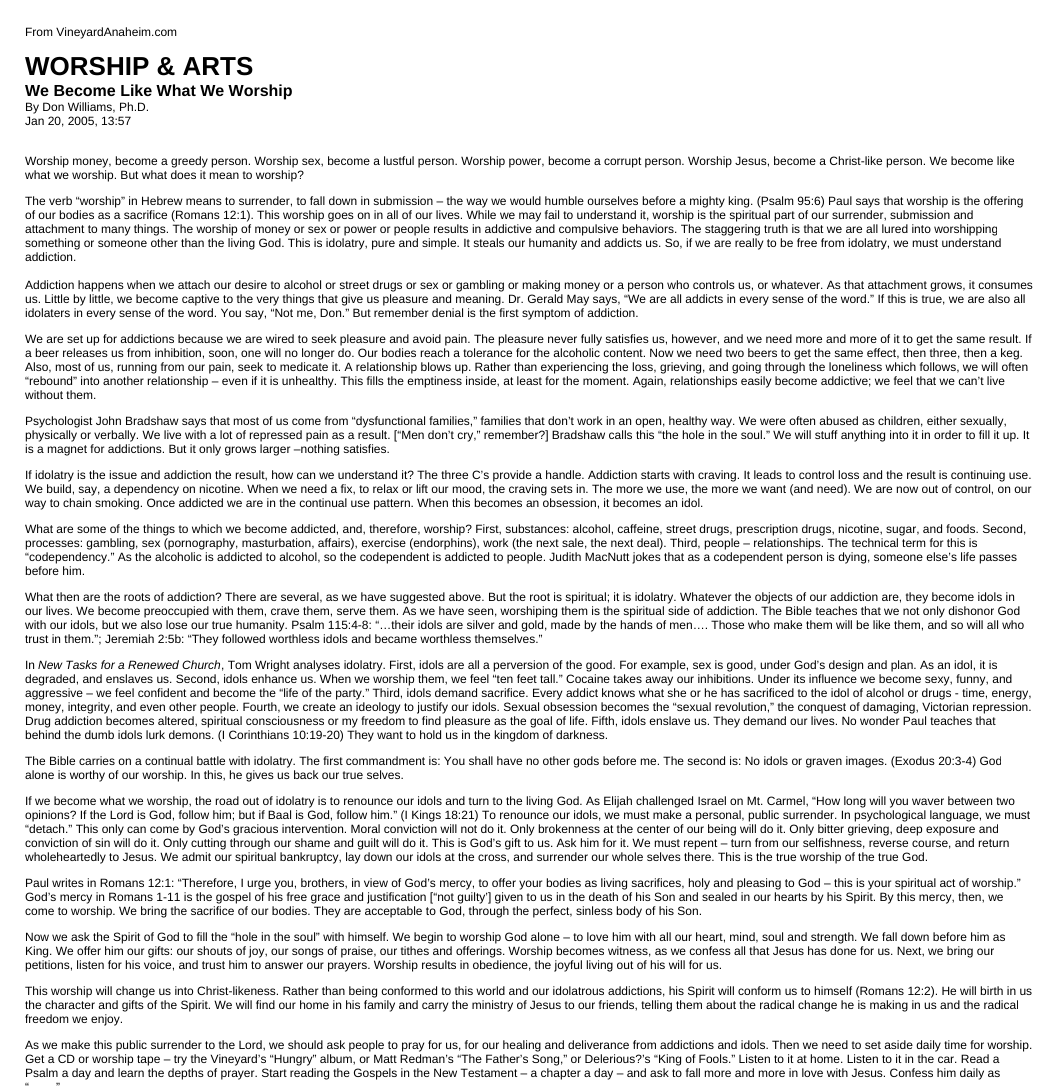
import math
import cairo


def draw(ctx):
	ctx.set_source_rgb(1, 1, 1)
	ctx.paint()
	ctx.select_font_face('Liberation Sans')
	ctx.set_font_size(12)
	ctx.set_source_rgb(0, 0, 0)
	ctx.move_to(25, 36)
	ctx.show_text('From VineyardAnaheim.com')
	ctx.select_font_face('Liberation Sans', cairo.FONT_SLANT_NORMAL, cairo.FONT_WEIGHT_BOLD)
	ctx.set_font_size(26)
	ctx.move_to(25, 75)
	ctx.show_text('WORSHIP & ARTS')
	ctx.set_font_size(16)
	ctx.move_to(25, 96)
	ctx.show_text('We Become Like What We Worship')
	ctx.select_font_face('Liberation Sans')
	ctx.set_font_size(12)
	for x, y, s in [
		(25, 111, 'By Don Williams, Ph.D.'),
		(25, 125, 'Jan 20, 2005, 13:57'),
		(25, 165, 'Worship money, become a greedy person. Worship sex, become a lustful person. Worship power, become a corrupt person. Worship Jesus, become a Christ-like person. We become like'),
		(25, 179, 'what we worship. But what does it mean to worship?'),
		(25, 205, 'The verb “worship” in Hebrew means to surrender, to fall down in submission – the way we would humble ourselves before a mighty king. (Psalm 95:6) Paul says that worship is the offering'),
		(25, 219, 'of our bodies as a sacrifice (Romans 12:1). This worship goes on in all of our lives. While we may fail to understand it, worship is the spiritual part of our surrender, submission and'),
		(25, 233, 'attachment to many things. The worship of money or sex or power or people results in addictive and compulsive behaviors. The staggering truth is that we are all lured into worshipping'),
		(25, 247, 'something or someone other than the living God. This is idolatry, pure and simple. It steals our humanity and addicts us. So, if we are really to be free from idolatry, we must understand'),
		(25, 261, 'addiction.'),
		(25, 289, 'Addiction happens when we attach our desire to alcohol or street drugs or sex or gambling or making money or a person who controls us, or whatever. As that attachment grows, it consumes'),
		(25, 303, 'us. Little by little, we become captive to the very things that give us pleasure and meaning. Dr. Gerald May says, “We are all addicts in every sense of the word.” If this is true, we are also all'),
		(25, 317, 'idolaters in every sense of the word. You say, “Not me, Don.” But remember denial is the first symptom of addiction.'),
		(25, 343, 'We are set up for addictions because we are wired to seek pleasure and avoid pain. The pleasure never fully satisfies us, however, and we need more and more of it to get the same result. If'),
		(25, 357, 'a beer releases us from inhibition, soon, one will no longer do. Our bodies reach a tolerance for the alcoholic content. Now we need two beers to get the same effect, then three, then a keg.'),
		(25, 371, 'Also, most of us, running from our pain, seek to medicate it. A relationship blows up. Rather than experiencing the loss, grieving, and going through the loneliness which follows, we will often'),
		(25, 385, '“rebound” into another relationship – even if it is unhealthy. This fills the emptiness inside, at least for the moment. Again, relationships easily become addictive; we feel that we can’t live'),
		(25, 399, 'without them.'),
		(25, 425, 'Psychologist John Bradshaw says that most of us come from “dysfunctional families,” families that don’t work in an open, healthy way. We were often abused as children, either sexually,'),
		(25, 439, 'physically or verbally. We live with a lot of repressed pain as a result. [“Men don’t cry,” remember?] Bradshaw calls this “the hole in the soul.” We will stuff anything into it in order to fill it up. It'),
		(25, 453, 'is a magnet for addictions. But it only grows larger –nothing satisfies.'),
		(25, 479, 'If idolatry is the issue and addiction the result, how can we understand it? The three C’s provide a handle. Addiction starts with craving. It leads to control loss and the result is continuing use.'),
		(25, 493, 'We build, say, a dependency on nicotine. When we need a fix, to relax or lift our mood, the craving sets in. The more we use, the more we want (and need). We are now out of control, on our'),
		(25, 507, 'way to chain smoking. Once addicted we are in the continual use pattern. When this becomes an obsession, it becomes an idol.'),
		(25, 533, 'What are some of the things to which we become addicted, and, therefore, worship? First, substances: alcohol, caffeine, street drugs, prescription drugs, nicotine, sugar, and foods. Second,'),
		(25, 547, 'processes: gambling, sex (pornography, masturbation, affairs), exercise (endorphins), work (the next sale, the next deal). Third, people – relationships. The technical term for this is'),
		(25, 561, '“codependency.” As the alcoholic is addicted to alcohol, so the codependent is addicted to people. Judith MacNutt jokes that as a codependent person is dying, someone else’s life passes'),
		(25, 575, 'before him.'),
		(25, 601, 'What then are the roots of addiction? There are several, as we have suggested above. But the root is spiritual; it is idolatry. Whatever the objects of our addiction are, they become idols in'),
		(25, 615, 'our lives. We become preoccupied with them, crave them, serve them. As we have seen, worshiping them is the spiritual side of addiction. The Bible teaches that we not only dishonor God'),
		(25, 629, 'with our idols, but we also lose our true humanity. Psalm 115:4-8: “…their idols are silver and gold, made by the hands of men…. Those who make them will be like them, and so will all who'),
		(25, 643, 'trust in them.”; Jeremiah 2:5b: “They followed worthless idols and became worthless themselves.”'),
		(25, 669, 'In'),
	]:
		ctx.move_to(x, y)
		ctx.show_text(s)
	ctx.select_font_face('Liberation Sans', cairo.FONT_SLANT_ITALIC)
	ctx.move_to(38, 669)
	ctx.show_text('New Tasks for a Renewed Church')
	ctx.select_font_face('Liberation Sans')
	for x, y, s in [
		(221, 669, ', Tom Wright analyses idolatry. First, idols are all a perversion of the good. For example, sex is good, under God’s design and plan. As an idol, it is'),
		(25, 683, 'degraded, and enslaves us. Second, idols enhance us. When we worship them, we feel “ten feet tall.” Cocaine takes away our inhibitions. Under its influence we become sexy, funny, and'),
		(25, 697, 'aggressive – we feel confident and become the “life of the party.” Third, idols demand sacrifice. Every addict knows what she or he has sacrificed to the idol of alcohol or drugs - time, energy,'),
		(25, 711, 'money, integrity, and even other people. Fourth, we create an ideology to justify our idols. Sexual obsession becomes the “sexual revolution,” the conquest of damaging, Victorian repression.'),
		(25, 725, 'Drug addiction becomes altered, spiritual consciousness or my freedom to find pleasure as the goal of life. Fifth, idols enslave us. They demand our lives. No wonder Paul teaches that'),
		(25, 739, 'behind the dumb idols lurk demons. (I Corinthians 10:19-20) They want to hold us in the kingdom of darkness.'),
		(25, 765, 'The Bible carries on a continual battle with idolatry. The first commandment is: You shall have no other gods before me. The second is: No idols or graven images. (Exodus 20:3-4) God'),
		(25, 779, 'alone is worthy of our worship. In this, he gives us back our true selves.'),
		(25, 805, 'If we become what we worship, the road out of idolatry is to renounce our idols and turn to the living God. As Elijah challenged Israel on Mt. Carmel, “How long will you waver between two'),
		(25, 819, 'opinions? If the Lord is God, follow him; but if Baal is God, follow him.” (I Kings 18:21) To renounce our idols, we must make a personal, public surrender. In psychological language, we must'),
		(25, 833, '“detach.” This only can come by God’s gracious intervention. Moral conviction will not do it. Only brokenness at the center of our being will do it. Only bitter grieving, deep exposure and'),
		(25, 847, 'conviction of sin will do it. Only cutting through our shame and guilt will do it. This is God’s gift to us. Ask him for it. We must repent – turn from our selfishness, reverse course, and return'),
		(25, 861, 'wholeheartedly to Jesus. We admit our spiritual bankruptcy, lay down our idols at the cross, and surrender our whole selves there. This is the true worship of the true God.'),
		(25, 887, 'Paul writes in Romans 12:1: “Therefore, I urge you, brothers, in view of God’s mercy, to offer your bodies as living sacrifices, holy and pleasing to God – this is your spiritual act of worship.”'),
		(25, 901, 'God’s mercy in Romans 1-11 is the gospel of his free grace and justification [“not guilty’] given to us in the death of his Son and sealed in our hearts by his Spirit. By this mercy, then, we'),
		(25, 915, 'come to worship. We bring the sacrifice of our bodies. They are acceptable to God, through the perfect, sinless body of his Son.'),
		(25, 941, 'Now we ask the Spirit of God to fill the “hole in the soul” with himself. We begin to worship God alone – to love him with all our heart, mind, soul and strength. We fall down before him as'),
		(25, 955, 'King. We offer him our gifts: our shouts of joy, our songs of praise, our tithes and offerings. Worship becomes witness, as we confess all that Jesus has done for us. Next, we bring our'),
		(25, 969, 'petitions, listen for his voice, and trust him to answer our prayers. Worship results in obedience, the joyful living out of his will for us.'),
		(25, 995, 'This worship will change us into Christ-likeness. Rather than being conformed to this world and our idolatrous addictions, his Spirit will conform us to himself (Romans 12:2). He will birth in us'),
		(25, 1009, 'the character and gifts of the Spirit. We will find our home in his family and carry the ministry of Jesus to our friends, telling them about the radical change he is making in us and the radical'),
		(25, 1023, 'freedom we enjoy.'),
		(25, 1049, 'As we make this public surrender to the Lord, we should ask people to pray for us, for our healing and deliverance from addictions and idols. Then we need to set aside daily time for worship.'),
		(25, 1063, 'Get a CD or worship tape – try the Vineyard’s “Hungry” album, or Matt Redman’s “The Father’s Song,” or Delerious?’s “King of Fools.” Listen to it at home. Listen to it in the car. Read a'),
		(25, 1077, 'Psalm a day and learn the depths of prayer. Start reading the Gospels in the New Testament – a chapter a day – and ask to fall more and more in love with Jesus. Confess him daily as'),
		(25, 1091, '“'),
		(56, 1091, '”'),
	]:
		ctx.move_to(x, y)
		ctx.show_text(s)


surface = cairo.ImageSurface(cairo.FORMAT_RGB24, 1058, 1086)
ctx = cairo.Context(surface)
options = cairo.FontOptions()
options.set_hint_metrics(cairo.HINT_METRICS_OFF)
options.set_hint_style(cairo.HINT_STYLE_NONE)
ctx.set_font_options(options)
ctx.set_miter_limit(4)
draw(ctx)
surface.write_to_png('image.png')
